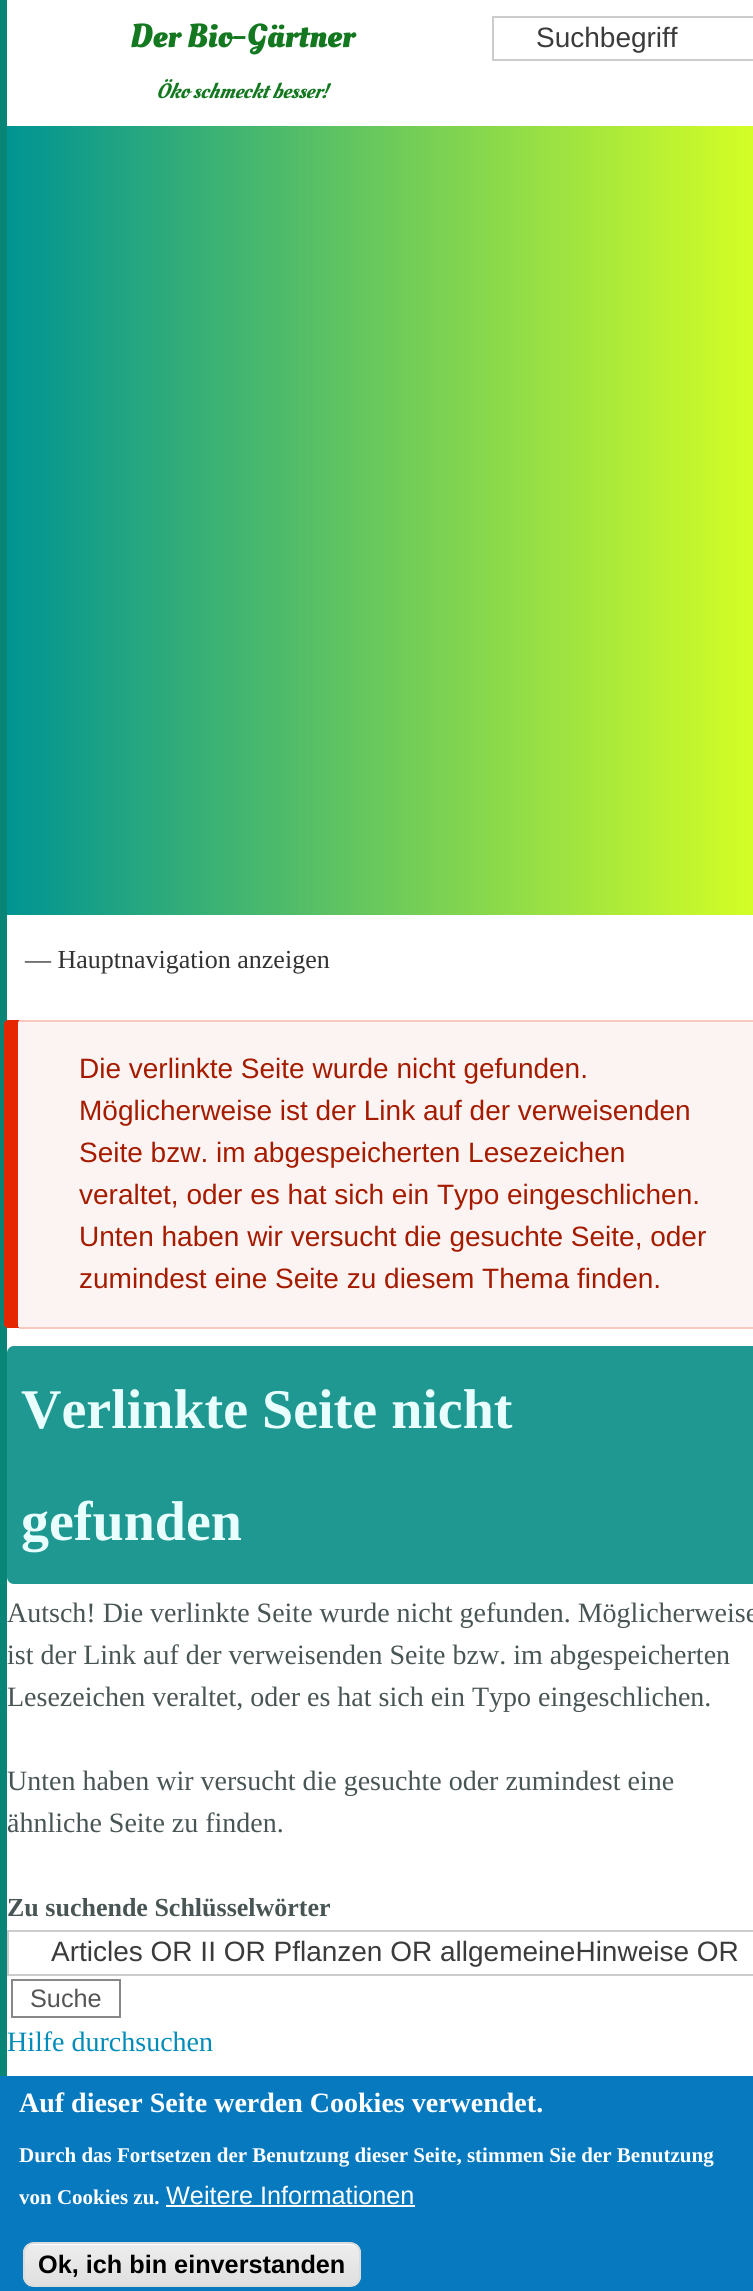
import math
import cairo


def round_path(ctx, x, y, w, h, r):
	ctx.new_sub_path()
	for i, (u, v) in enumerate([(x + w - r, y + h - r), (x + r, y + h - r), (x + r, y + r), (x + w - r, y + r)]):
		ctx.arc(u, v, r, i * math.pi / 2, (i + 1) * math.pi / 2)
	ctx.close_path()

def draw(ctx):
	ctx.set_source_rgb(0.039, 0.522, 0.467)
	ctx.paint()
	ctx.set_source_rgb(1, 1, 1)
	ctx.rectangle(7, 915, 746, 1161)
	ctx.fill()
	gradient = cairo.LinearGradient(7, 458, 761, 458)
	gradient.add_color_stop_rgba(0, 0, 0.58, 0.576, 1)
	gradient.add_color_stop_rgba(1, 0.839, 1, 0.141, 1)
	ctx.set_source(gradient)
	ctx.rectangle(7, 126, 746, 789)
	ctx.fill()
	ctx.set_source_rgb(1, 1, 1)
	ctx.rectangle(7, 0, 746, 126)
	ctx.fill()
	ctx.select_font_face('Oleo Script', cairo.FONT_SLANT_NORMAL, cairo.FONT_WEIGHT_BOLD)
	ctx.set_font_size(33.25)
	ctx.set_source_rgb(0.078, 0.471, 0.125)
	ctx.move_to(130, 47)
	ctx.show_text('Der Bio-Gärtner')
	ctx.select_font_face('Oleo Script', cairo.FONT_SLANT_ITALIC)
	ctx.set_font_size(21)
	ctx.move_to(156, 98)
	ctx.show_text('Öko schmeckt besser!')
	ctx.rectangle(493, 17, 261, 43)
	ctx.set_source_rgb(0.8, 0.8, 0.8)
	ctx.stroke()
	ctx.select_font_face('Liberation Sans')
	ctx.set_font_size(28)
	ctx.set_source_rgb(0.231, 0.231, 0.231)
	ctx.move_to(536, 47)
	ctx.show_text('Suchbegriff')
	ctx.select_font_face('Liberation Serif')
	ctx.set_font_size(26)
	ctx.set_source_rgb(0.2, 0.2, 0.2)
	ctx.move_to(25, 968)
	ctx.show_text('— Hauptnavigation anzeigen')
	ctx.set_source_rgb(0.902, 0.149, 0)
	ctx.new_path()
	ctx.move_to(8, 1020)
	ctx.curve_to(6, 1020, 4, 1022, 4, 1024)
	ctx.line_to(4, 1324)
	ctx.curve_to(4, 1326, 6, 1328, 8, 1328)
	ctx.line_to(20, 1328)
	ctx.curve_to(18, 1327, 18, 1326, 18, 1325)
	ctx.line_to(18, 1024)
	ctx.curve_to(18, 1022, 19, 1020, 21, 1020)
	ctx.line_to(744, 1020)
	ctx.line_to(743, 1020)
	ctx.close_path()
	ctx.fill()
	ctx.set_source_rgb(0.988, 0.957, 0.949)
	round_path(ctx, 18, 1020, 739, 308, 4)
	ctx.fill()
	ctx.set_source_rgb(0.976, 0.788, 0.749)
	ctx.rectangle(19, 1020, 734, 2)
	ctx.fill()
	ctx.rectangle(19, 1327, 734, 2)
	ctx.fill()
	ctx.select_font_face('Liberation Sans')
	ctx.set_font_size(28)
	ctx.set_source_rgb(0.647, 0.106, 0)
	for x, y, s in [
		(79, 1078, 'Die verlinkte Seite wurde nicht gefunden.'),
		(79, 1120, 'Möglicherweise ist der Link auf der verweisenden'),
		(79, 1162, 'Seite bzw. im abgespeicherten Lesezeichen'),
		(79, 1204, 'veraltet, oder es hat sich ein Typo eingeschlichen.'),
		(79, 1246, 'Unten haben wir versucht die gesuchte Seite, oder'),
		(79, 1288, 'zumindest eine Seite zu diesem Thema finden.'),
	]:
		ctx.move_to(x, y)
		ctx.show_text(s)
	ctx.set_source_rgb(0.122, 0.596, 0.573)
	round_path(ctx, 7, 1346, 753, 238, 7)
	ctx.fill()
	ctx.select_font_face('Liberation Serif', cairo.FONT_SLANT_NORMAL, cairo.FONT_WEIGHT_BOLD)
	ctx.set_font_size(56)
	ctx.set_source_rgb(0.91, 1, 0.992)
	ctx.move_to(21, 1428)
	ctx.show_text('Verlinkte Seite nicht')
	ctx.move_to(21, 1540)
	ctx.show_text('gefunden')
	ctx.select_font_face('Liberation Serif')
	ctx.set_font_size(28)
	ctx.set_source_rgb(0.286, 0.333, 0.333)
	for x, y, s in [
		(7, 1622, 'Autsch! Die verlinkte Seite wurde nicht gefunden. Möglicherweise'),
		(7, 1664, 'ist der Link auf der verweisenden Seite bzw. im abgespeicherten'),
		(7, 1706, 'Lesezeichen veraltet, oder es hat sich ein Typo eingeschlichen.'),
		(7, 1790, 'Unten haben wir versucht die gesuchte oder zumindest eine'),
		(7, 1832, 'ähnliche Seite zu finden.'),
	]:
		ctx.move_to(x, y)
		ctx.show_text(s)
	ctx.select_font_face('Liberation Serif', cairo.FONT_SLANT_NORMAL, cairo.FONT_WEIGHT_BOLD)
	ctx.set_font_size(26)
	ctx.move_to(7, 1916)
	ctx.show_text('Zu suchende Schlüsselwörter')
	ctx.rectangle(8, 1931, 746, 44)
	ctx.set_source_rgb(0.8, 0.8, 0.8)
	ctx.stroke()
	ctx.select_font_face('Liberation Sans')
	ctx.set_font_size(28)
	ctx.set_source_rgb(0.231, 0.231, 0.231)
	ctx.move_to(51, 1961)
	ctx.show_text('Articles OR II OR Pflanzen OR allgemeineHinweise OR')
	ctx.rectangle(12, 1980, 108, 37)
	ctx.set_source_rgb(0.533, 0.533, 0.533)
	ctx.stroke()
	ctx.set_font_size(25.25)
	ctx.set_source_rgb(0.333, 0.333, 0.333)
	ctx.move_to(30, 2007)
	ctx.show_text('Suche')
	ctx.select_font_face('Liberation Serif')
	ctx.set_font_size(28)
	ctx.set_source_rgb(0, 0.545, 0.722)
	ctx.move_to(7, 2051)
	ctx.show_text('Hilfe durchsuchen')
	ctx.set_source_rgb(0.027, 0.475, 0.749)
	ctx.rectangle(0, 2076, 753, 215)
	ctx.fill()
	ctx.select_font_face('Liberation Serif', cairo.FONT_SLANT_NORMAL, cairo.FONT_WEIGHT_BOLD)
	ctx.set_source_rgb(1, 1, 1)
	ctx.move_to(19, 2112)
	ctx.show_text('Auf dieser Seite werden Cookies verwendet.')
	ctx.set_font_size(21)
	ctx.move_to(19, 2162)
	ctx.show_text('Durch das Fortsetzen der Benutzung dieser Seite, stimmen Sie der Benutzung')
	ctx.move_to(19, 2204)
	ctx.show_text('von Cookies zu.')
	ctx.select_font_face('Liberation Sans')
	ctx.set_font_size(25.25)
	ctx.move_to(166, 2204)
	ctx.show_text('Weitere Informationen')
	ctx.rectangle(166, 2205, 249, 2)
	ctx.fill()
	ctx.save()
	round_path(ctx, 23, 2242, 338, 45, 11)
	ctx.clip()
	gradient = cairo.LinearGradient(192, 2244, 192, 2286)
	gradient.add_color_stop_rgba(0.05, 0.929, 0.929, 0.929, 1)
	gradient.add_color_stop_rgba(1, 0.875, 0.875, 0.875, 1)
	ctx.set_source(gradient)
	ctx.rectangle(23, 2244, 338, 42)
	ctx.fill()
	ctx.restore()
	ctx.new_path()
	ctx.move_to(33, 2245)
	ctx.line_to(350, 2245)
	ctx.curve_to(355, 2245, 359, 2249, 359, 2254)
	ctx.line_to(359, 2253)
	ctx.curve_to(359, 2248, 355, 2244, 350, 2244)
	ctx.line_to(34, 2244)
	ctx.curve_to(31, 2244, 29, 2245, 27, 2247)
	ctx.curve_to(29, 2246, 31, 2245, 33, 2245)
	ctx.close_path()
	ctx.fill()
	round_path(ctx, 24, 2243, 336, 43, 10)
	ctx.set_source_rgb(0.863, 0.863, 0.863)
	ctx.stroke()
	ctx.select_font_face('Liberation Sans', cairo.FONT_SLANT_NORMAL, cairo.FONT_WEIGHT_BOLD)
	ctx.set_source_rgb(0, 0, 0)
	ctx.move_to(38, 2273)
	ctx.show_text('Ok, ich bin einverstanden')


surface = cairo.ImageSurface(cairo.FORMAT_RGB24, 753, 2291)
ctx = cairo.Context(surface)
options = cairo.FontOptions()
options.set_hint_metrics(cairo.HINT_METRICS_OFF)
options.set_hint_style(cairo.HINT_STYLE_NONE)
ctx.set_font_options(options)
ctx.set_miter_limit(4)
draw(ctx)
surface.write_to_png('image.png')
